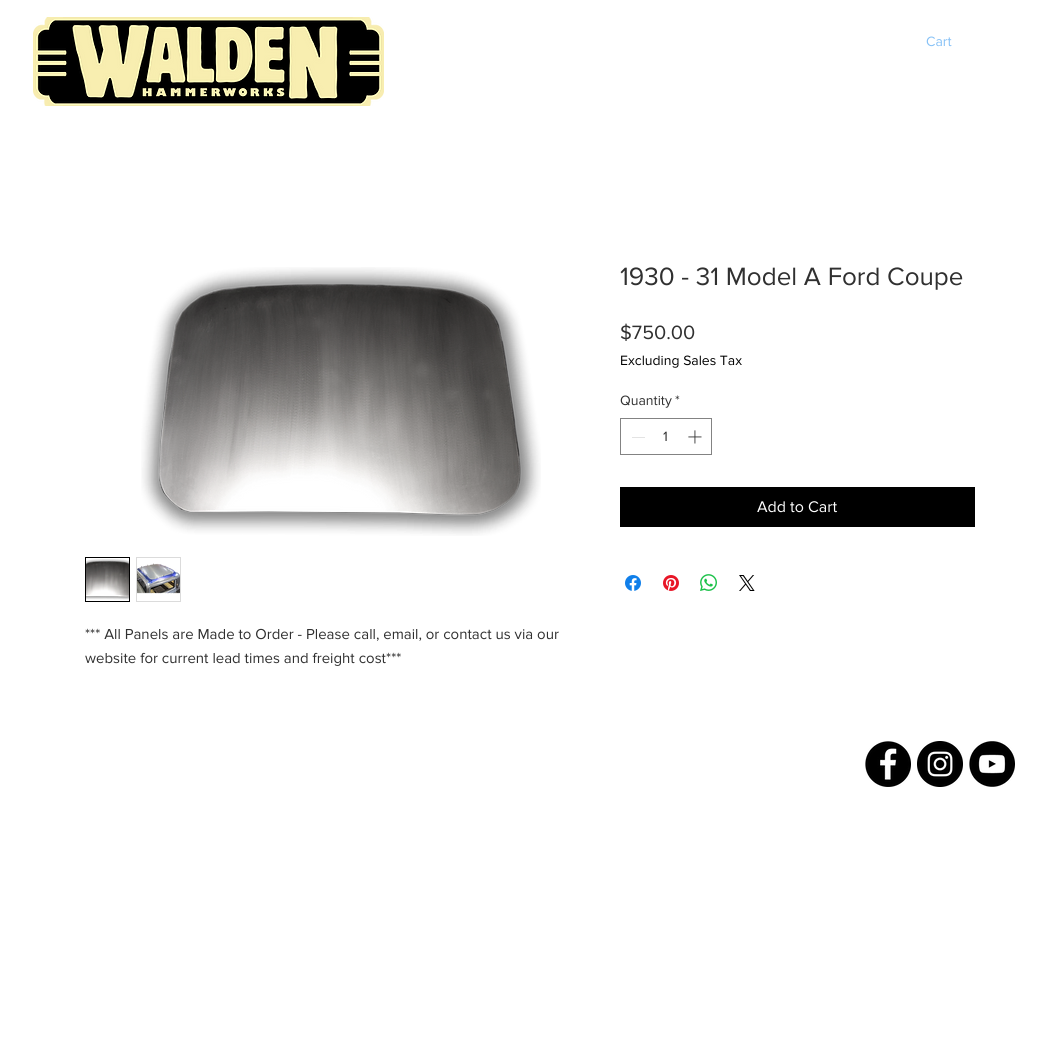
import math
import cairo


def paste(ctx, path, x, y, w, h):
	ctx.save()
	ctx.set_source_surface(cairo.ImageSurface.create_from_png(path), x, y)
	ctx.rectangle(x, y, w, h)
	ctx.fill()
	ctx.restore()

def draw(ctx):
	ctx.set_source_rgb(1, 1, 1)
	ctx.paint()
	paste(ctx, 'media/1.png', 33, 17, 351, 89)
	ctx.select_font_face('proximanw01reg')
	ctx.set_font_size(14)
	ctx.set_source_rgb(0.525, 0.757, 0.961)
	ctx.move_to(926, 46)
	ctx.show_text('Cart')
	ctx.set_font_size(26)
	ctx.set_source_rgb(0.188, 0.188, 0.188)
	ctx.move_to(620, 285)
	ctx.show_text('1930 - 31 Model A Ford Coupe')
	ctx.set_font_size(20)
	ctx.move_to(620, 339)
	ctx.show_text('$750.00')
	ctx.set_font_size(14)
	ctx.set_source_rgb(0, 0, 0)
	ctx.move_to(620, 365)
	ctx.show_text('Excluding Sales Tax')
	ctx.set_source_rgb(0.188, 0.188, 0.188)
	ctx.move_to(620, 405)
	ctx.show_text('Quantity')
	ctx.move_to(675, 405)
	ctx.show_text('*')
	ctx.rectangle(620.5, 418.5, 91, 36)
	ctx.set_source_rgb(0.514, 0.514, 0.514)
	ctx.set_line_width(1)
	ctx.stroke()
	ctx.set_source_rgb(0.89, 0.89, 0.89)
	ctx.rectangle(632, 437, 13, 1)
	ctx.fill()
	ctx.set_source_rgb(0.188, 0.188, 0.188)
	ctx.move_to(663, 441)
	ctx.show_text('1')
	paste(ctx, 'media/2.png', 688, 430, 14, 14)
	ctx.set_source_rgb(0, 0, 0)
	ctx.rectangle(620, 487, 355, 40)
	ctx.fill()
	ctx.set_font_size(16)
	ctx.set_source_rgb(1, 1, 1)
	ctx.move_to(757, 512)
	ctx.show_text('Add to Cart')
	paste(ctx, 'media/3.png', 625, 575, 16, 16)
	paste(ctx, 'media/4.png', 663, 575, 16, 16)
	paste(ctx, 'media/5.png', 700, 574, 17, 17)
	paste(ctx, 'media/6.png', 739, 575, 16, 16)
	paste(ctx, 'media/7.png', 141, 267, 400, 269)
	ctx.rectangle(85.5, 557.5, 44, 44)
	ctx.set_source_rgb(0, 0, 0)
	ctx.stroke()
	paste(ctx, 'media/8.png', 86, 559, 43, 41)
	ctx.rectangle(136.5, 557.5, 44, 44)
	ctx.set_source_rgb(0.859, 0.859, 0.859)
	ctx.stroke()
	paste(ctx, 'media/9.png', 137, 563, 43, 31)
	ctx.set_font_size(15)
	ctx.set_source_rgb(0.188, 0.188, 0.188)
	ctx.move_to(85, 639)
	ctx.show_text('*** All Panels are Made to Order - Please call, email, or contact us via our')
	ctx.move_to(85, 663)
	ctx.show_text('website for current lead times and freight cost***')
	paste(ctx, 'media/10.png', 865, 741, 46, 46)
	paste(ctx, 'media/11.png', 917, 741, 46, 46)
	paste(ctx, 'media/12.png', 969, 741, 46, 46)


surface = cairo.ImageSurface(cairo.FORMAT_RGB24, 1059, 1039)
ctx = cairo.Context(surface)
options = cairo.FontOptions()
options.set_hint_metrics(cairo.HINT_METRICS_OFF)
options.set_hint_style(cairo.HINT_STYLE_NONE)
ctx.set_font_options(options)
ctx.set_miter_limit(4)
draw(ctx)
surface.write_to_png('image.png')
